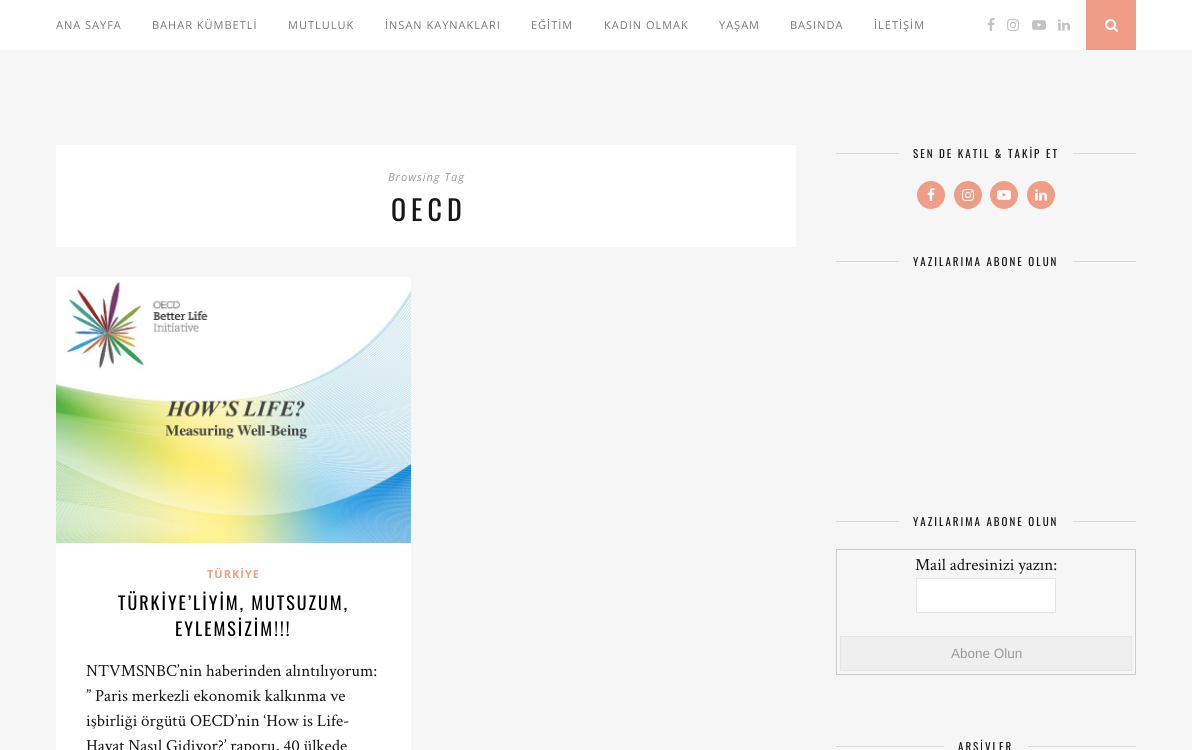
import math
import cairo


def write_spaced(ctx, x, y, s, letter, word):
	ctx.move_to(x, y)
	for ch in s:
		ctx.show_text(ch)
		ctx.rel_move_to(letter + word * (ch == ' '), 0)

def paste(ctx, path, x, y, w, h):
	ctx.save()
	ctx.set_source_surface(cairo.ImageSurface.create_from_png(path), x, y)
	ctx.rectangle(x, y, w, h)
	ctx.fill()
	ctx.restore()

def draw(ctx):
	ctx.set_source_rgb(0.961, 0.961, 0.961)
	ctx.paint()
	ctx.set_source_rgb(1, 1, 1)
	ctx.rectangle(0, 0, 1192, 50)
	ctx.fill()
	ctx.select_font_face('Open Sans')
	ctx.set_font_size(11)
	ctx.set_source_rgb(0.467, 0.467, 0.467)
	for x, y, s in [
		(56, 29, 'ANA SAYFA'),
		(152, 29, 'BAHAR KÜMBETLİ'),
		(288, 29, 'MUTLULUK'),
		(385, 29, 'İNSAN KAYNAKLARI'),
		(531, 29, 'EĞİTİM'),
		(604, 29, 'KADIN OLMAK'),
		(719, 29, 'YAŞAM'),
		(790, 29, 'BASINDA'),
		(874, 29, 'İLETİŞİM'),
	]:
		write_spaced(ctx, x, y, s, 1, 0)
	paste(ctx, 'media/1.png', 987, 18, 8, 13)
	paste(ctx, 'media/2.png', 1007, 19, 12, 12)
	paste(ctx, 'media/3.png', 1032, 20, 14, 10)
	paste(ctx, 'media/4.png', 1058, 19, 12, 12)
	ctx.set_source_rgb(0.937, 0.616, 0.529)
	ctx.rectangle(1086, 0, 50, 50)
	ctx.fill()
	paste(ctx, 'media/5.png', 1105, 19, 13, 13)
	ctx.set_source_rgb(1, 1, 1)
	ctx.rectangle(56, 145, 740, 102)
	ctx.fill()
	ctx.select_font_face('Open Sans', cairo.FONT_SLANT_ITALIC)
	ctx.set_source_rgb(0.6, 0.6, 0.6)
	write_spaced(ctx, 388, 181, 'Browsing Tag', 1, 0)
	ctx.select_font_face('Oswald')
	ctx.set_font_size(28)
	ctx.set_source_rgb(0.086, 0.086, 0.086)
	write_spaced(ctx, 391, 221, 'OECD', 5, 0)
	ctx.set_source_rgb(1, 1, 1)
	ctx.rectangle(56, 277, 355, 473)
	ctx.fill()
	paste(ctx, 'media/6.png', 56, 281, 355, 262)
	ctx.select_font_face('Open Sans', cairo.FONT_SLANT_NORMAL, cairo.FONT_WEIGHT_BOLD)
	ctx.set_font_size(11)
	ctx.set_source_rgb(0.937, 0.616, 0.529)
	write_spaced(ctx, 207, 578, 'TÜRKİYE', 1, 0)
	ctx.select_font_face('Oswald')
	ctx.set_font_size(18)
	ctx.set_source_rgb(0, 0, 0)
	write_spaced(ctx, 118, 610, 'TÜRKİYE’LİYİM, MUTSUZUM,', 2, 0)
	write_spaced(ctx, 175, 636, 'EYLEMSİZİM!!!', 2, 0)
	ctx.select_font_face('Crimson Text')
	ctx.set_font_size(17)
	ctx.set_source_rgb(0.086, 0.086, 0.086)
	for x, y, s in [
		(86, 676, 'NTVMSNBC’nin haberinden alıntılıyorum:'),
		(86, 701, '” Paris merkezli ekonomik kalkınma ve'),
		(86, 726, 'işbirliği örgütü OECD’nin ‘How is Life-'),
		(86, 751, 'Hayat Nasıl Gidiyor?’ raporu, 40 ülkede'),
	]:
		ctx.move_to(x, y)
		ctx.show_text(s)
	ctx.set_source_rgb(0.847, 0.847, 0.847)
	ctx.rectangle(836, 153, 63, 1)
	ctx.fill()
	ctx.select_font_face('Oswald')
	ctx.set_font_size(11)
	ctx.set_source_rgb(0.086, 0.086, 0.086)
	write_spaced(ctx, 913, 158, 'SEN DE KATIL & TAKİP ET', 2, 0)
	ctx.set_source_rgb(0.847, 0.847, 0.847)
	ctx.rectangle(1073, 153, 63, 1)
	ctx.fill()
	ctx.set_source_rgb(0.937, 0.616, 0.529)
	ctx.arc(931, 195, 14, 0, 2 * math.pi)
	ctx.fill()
	paste(ctx, 'media/7.png', 927, 188, 8, 13)
	ctx.arc(968, 195, 14, 0, 2 * math.pi)
	ctx.fill()
	paste(ctx, 'media/8.png', 962, 189, 12, 12)
	ctx.arc(1004, 195, 14, 0, 2 * math.pi)
	ctx.fill()
	paste(ctx, 'media/9.png', 997, 190, 14, 10)
	ctx.arc(1041, 195, 14, 0, 2 * math.pi)
	ctx.fill()
	paste(ctx, 'media/10.png', 1035, 189, 12, 12)
	ctx.set_source_rgb(0.847, 0.847, 0.847)
	ctx.rectangle(836, 261, 63, 1)
	ctx.fill()
	ctx.set_source_rgb(0.086, 0.086, 0.086)
	write_spaced(ctx, 913, 266, 'YAZILARIMA ABONE OLUN', 2, 0)
	ctx.set_source_rgb(0.847, 0.847, 0.847)
	ctx.rectangle(1073, 261, 63, 1)
	ctx.fill()
	ctx.rectangle(836, 521, 63, 1)
	ctx.fill()
	ctx.set_source_rgb(0.086, 0.086, 0.086)
	write_spaced(ctx, 913, 526, 'YAZILARIMA ABONE OLUN', 2, 0)
	ctx.set_source_rgb(0.847, 0.847, 0.847)
	ctx.rectangle(1073, 521, 63, 1)
	ctx.fill()
	ctx.rectangle(836.5, 549.5, 299, 125)
	ctx.set_source_rgb(0.8, 0.8, 0.8)
	ctx.set_line_width(1)
	ctx.stroke()
	ctx.select_font_face('Crimson Text')
	ctx.set_font_size(17)
	ctx.set_source_rgb(0.086, 0.086, 0.086)
	ctx.move_to(915, 570)
	ctx.show_text('Mail adresinizi yazın:')
	ctx.set_source_rgb(1, 1, 1)
	ctx.rectangle(916.5, 578.5, 139, 34)
	ctx.fill_preserve()
	ctx.set_source_rgb(0.898, 0.898, 0.898)
	ctx.stroke()
	ctx.set_source_rgb(0.937, 0.937, 0.937)
	ctx.rectangle(840.5, 636.5, 291, 34)
	ctx.fill_preserve()
	ctx.set_source_rgb(0.898, 0.898, 0.898)
	ctx.stroke()
	ctx.select_font_face('Liberation Sans')
	ctx.set_font_size(13.5)
	ctx.set_source_rgb(0.6, 0.6, 0.6)
	ctx.move_to(951, 658)
	ctx.show_text('Abone Olun')
	ctx.set_source_rgb(0.847, 0.847, 0.847)
	ctx.rectangle(836, 746, 108, 1)
	ctx.fill()
	ctx.select_font_face('Oswald')
	ctx.set_font_size(11)
	ctx.set_source_rgb(0.086, 0.086, 0.086)
	write_spaced(ctx, 958, 751, 'ARŞİVLER', 2, 0)
	ctx.set_source_rgb(0.847, 0.847, 0.847)
	ctx.rectangle(1028, 746, 108, 1)
	ctx.fill()


surface = cairo.ImageSurface(cairo.FORMAT_RGB24, 1192, 750)
ctx = cairo.Context(surface)
options = cairo.FontOptions()
options.set_hint_metrics(cairo.HINT_METRICS_OFF)
options.set_hint_style(cairo.HINT_STYLE_NONE)
ctx.set_font_options(options)
ctx.set_miter_limit(4)
draw(ctx)
surface.write_to_png('image.png')
